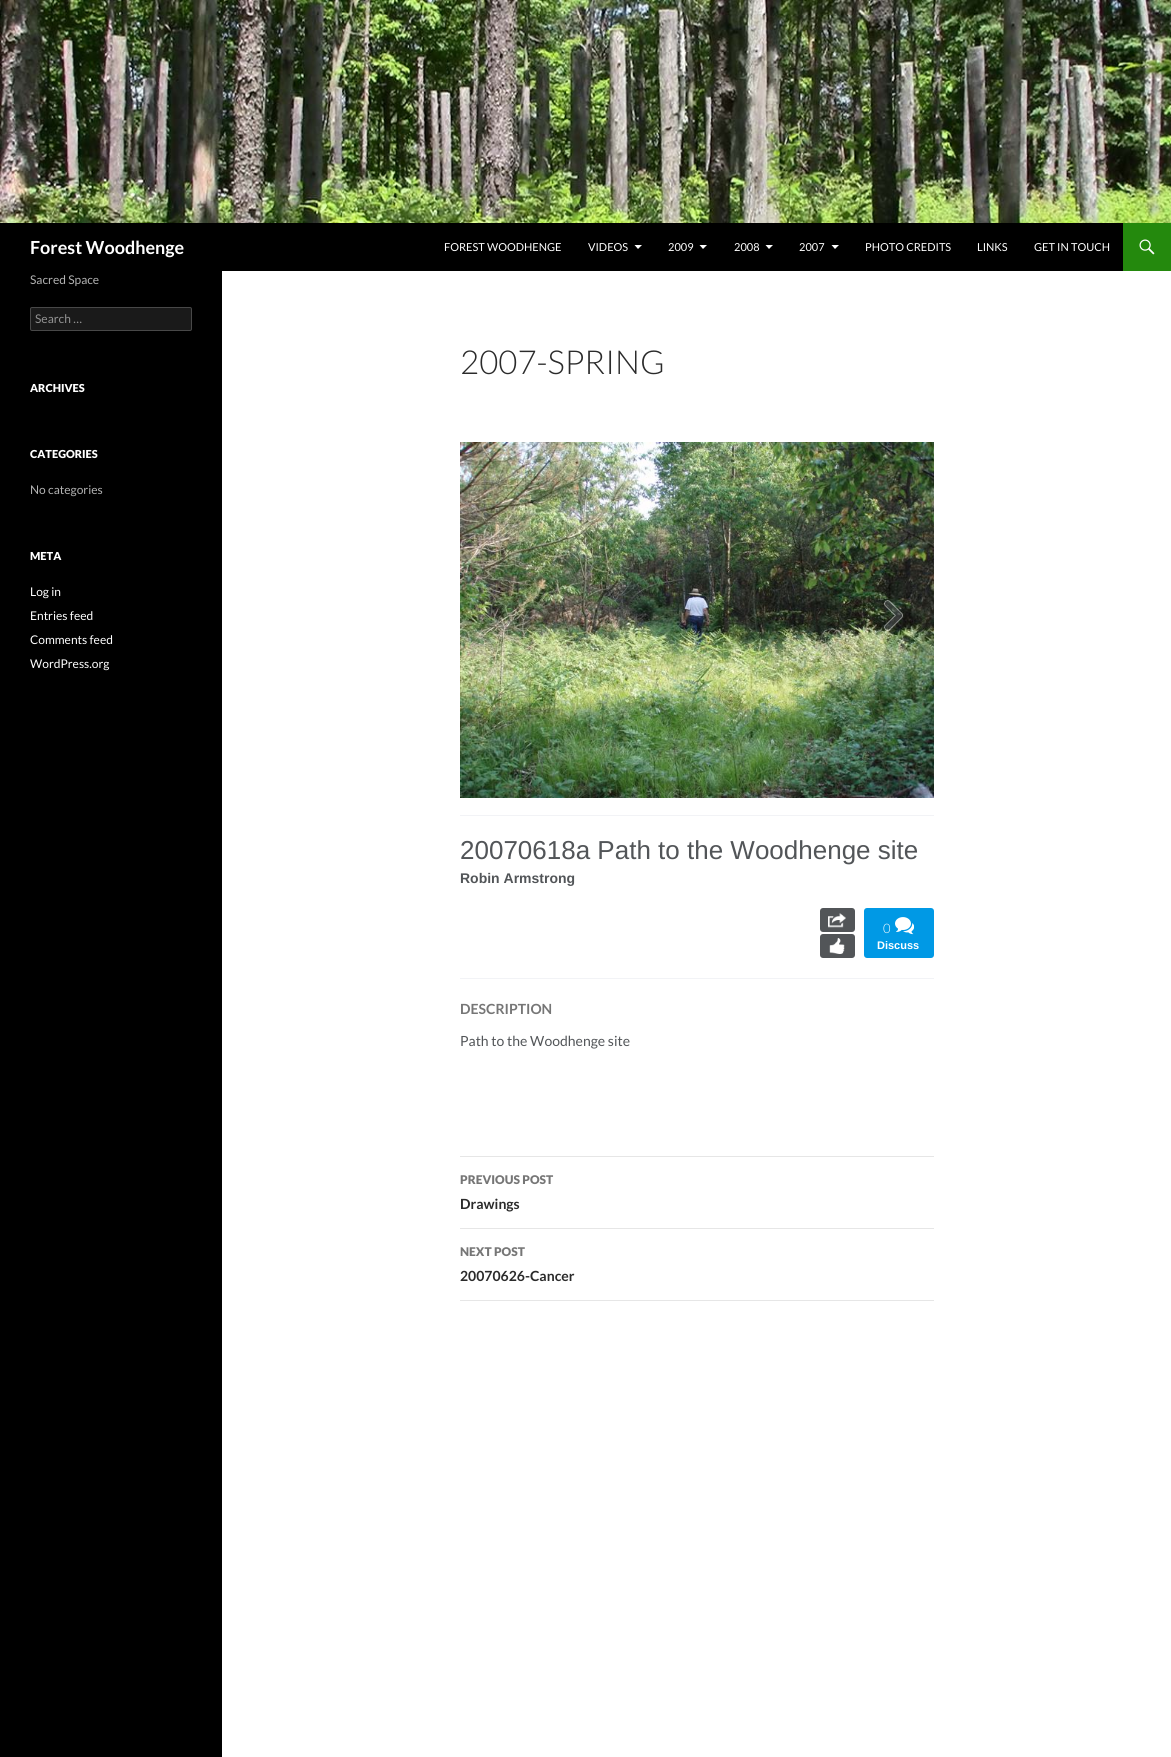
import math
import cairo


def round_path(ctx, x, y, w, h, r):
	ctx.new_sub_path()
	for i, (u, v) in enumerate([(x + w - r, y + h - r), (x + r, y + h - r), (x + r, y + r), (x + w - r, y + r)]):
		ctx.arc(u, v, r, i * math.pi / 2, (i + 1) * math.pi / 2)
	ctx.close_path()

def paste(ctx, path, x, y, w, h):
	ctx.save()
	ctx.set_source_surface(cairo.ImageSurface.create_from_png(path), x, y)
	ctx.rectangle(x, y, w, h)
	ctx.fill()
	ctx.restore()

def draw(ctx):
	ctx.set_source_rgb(1, 1, 1)
	ctx.paint()
	paste(ctx, 'media/1.png', 0, 0, 1171, 223)
	ctx.set_source_rgb(0, 0, 0)
	ctx.rectangle(0, 223, 1123, 48)
	ctx.fill()
	ctx.select_font_face('Lato', cairo.FONT_SLANT_NORMAL, cairo.FONT_WEIGHT_BOLD)
	ctx.set_font_size(18)
	ctx.set_source_rgb(1, 1, 1)
	ctx.move_to(30, 254)
	ctx.show_text('Forest Woodhenge')
	ctx.select_font_face('Lato')
	ctx.set_font_size(11)
	ctx.move_to(444, 251)
	ctx.show_text('FOREST WOODHENGE')
	ctx.move_to(588, 251)
	ctx.show_text('VIDEOS')
	ctx.new_path()
	ctx.move_to(634.5, 245)
	ctx.line_to(638, 249)
	ctx.line_to(642, 245)
	ctx.close_path()
	ctx.fill()
	ctx.move_to(668, 251)
	ctx.show_text('2009')
	ctx.new_path()
	ctx.move_to(699.5, 245)
	ctx.line_to(703, 249)
	ctx.line_to(707, 245)
	ctx.close_path()
	ctx.fill()
	ctx.move_to(734, 251)
	ctx.show_text('2008')
	ctx.new_path()
	ctx.move_to(765.5, 245)
	ctx.line_to(769, 249)
	ctx.line_to(773, 245)
	ctx.close_path()
	ctx.fill()
	ctx.move_to(799, 251)
	ctx.show_text('2007')
	ctx.new_path()
	ctx.move_to(831.5, 245)
	ctx.line_to(835, 249)
	ctx.line_to(839, 245)
	ctx.close_path()
	ctx.fill()
	for x, y, s in [
		(865, 251, 'PHOTO CREDITS'),
		(977, 251, 'LINKS'),
		(1034, 251, 'GET IN TOUCH'),
	]:
		ctx.move_to(x, y)
		ctx.show_text(s)
	ctx.set_source_rgb(0.141, 0.537, 0.051)
	ctx.rectangle(1123, 223, 48, 48)
	ctx.fill()
	paste(ctx, 'media/2.png', 1139, 239, 16, 16)
	ctx.set_source_rgb(0, 0, 0)
	ctx.rectangle(0, 271, 222, 1486)
	ctx.fill()
	ctx.set_font_size(12)
	ctx.set_source_rgb(0.702, 0.702, 0.702)
	ctx.move_to(30, 284)
	ctx.show_text('Sacred Space')
	ctx.set_source_rgb(0.102, 0.102, 0.102)
	round_path(ctx, 30, 307, 162, 24, 2)
	ctx.fill()
	round_path(ctx, 30.5, 307.5, 161, 23, 1.5)
	ctx.set_source_rgba(1, 1, 1, 0.2)
	ctx.set_line_width(1)
	ctx.stroke()
	ctx.set_source_rgb(0.576, 0.576, 0.576)
	ctx.move_to(35, 323)
	ctx.show_text('Search …')
	ctx.select_font_face('Lato Black')
	ctx.set_font_size(11)
	ctx.set_source_rgb(1, 1, 1)
	ctx.move_to(30, 392)
	ctx.show_text('ARCHIVES')
	ctx.move_to(30, 458)
	ctx.show_text('CATEGORIES')
	ctx.select_font_face('Lato')
	ctx.set_font_size(12)
	ctx.set_source_rgb(0.702, 0.702, 0.702)
	ctx.move_to(30, 494)
	ctx.show_text('No categories')
	ctx.select_font_face('Lato Black')
	ctx.set_font_size(11)
	ctx.set_source_rgb(1, 1, 1)
	ctx.move_to(30, 560)
	ctx.show_text('META')
	ctx.select_font_face('Lato')
	ctx.set_font_size(12)
	for x, y, s in [
		(30, 596, 'Log in'),
		(30, 620, 'Entries feed'),
		(30, 644, 'Comments feed'),
		(30, 668, 'WordPress.org'),
	]:
		ctx.move_to(x, y)
		ctx.show_text(s)
	ctx.select_font_face('Lato Light')
	ctx.set_font_size(33)
	ctx.set_source_rgb(0.169, 0.169, 0.169)
	ctx.move_to(460, 374)
	ctx.show_text('2007-SPRING')
	paste(ctx, 'media/3.png', 460, 442, 474, 356)
	paste(ctx, 'media/4.png', 490, 600, 19, 31)
	paste(ctx, 'media/5.png', 884, 600, 19, 31)
	ctx.set_source_rgb(0.949, 0.953, 0.961)
	ctx.rectangle(460, 815, 474, 1)
	ctx.fill()
	ctx.rectangle(460, 978, 474, 1)
	ctx.fill()
	ctx.select_font_face('Liberation Sans')
	ctx.set_font_size(26)
	ctx.set_source_rgb(0.322, 0.333, 0.345)
	ctx.move_to(460, 859)
	ctx.show_text('20070618a Path to the Woodhenge site')
	ctx.select_font_face('Liberation Sans', cairo.FONT_SLANT_NORMAL, cairo.FONT_WEIGHT_BOLD)
	ctx.set_font_size(14)
	ctx.move_to(460, 883)
	ctx.show_text('Robin Armstrong')
	round_path(ctx, 820, 908, 35, 24, 3)
	ctx.fill()
	paste(ctx, 'media/6.png', 828, 913, 18, 15)
	round_path(ctx, 820, 934, 35, 24, 3)
	ctx.fill()
	paste(ctx, 'media/7.png', 829, 938, 16, 16)
	ctx.set_source_rgb(0, 0.6, 0.898)
	round_path(ctx, 864, 908, 70, 50, 3)
	ctx.fill()
	ctx.select_font_face('Lato Light')
	ctx.set_font_size(13)
	ctx.set_source_rgb(1, 1, 1)
	ctx.move_to(883, 933)
	ctx.show_text('0')
	paste(ctx, 'media/8.png', 895, 917, 19, 18)
	ctx.select_font_face('Liberation Sans', cairo.FONT_SLANT_NORMAL, cairo.FONT_WEIGHT_BOLD)
	ctx.set_font_size(11)
	ctx.move_to(877, 949)
	ctx.show_text('Discuss')
	ctx.select_font_face('Lato', cairo.FONT_SLANT_NORMAL, cairo.FONT_WEIGHT_BOLD)
	ctx.set_font_size(14)
	ctx.set_source_rgb(0.463, 0.463, 0.463)
	ctx.move_to(460, 1014)
	ctx.show_text('DESCRIPTION')
	ctx.select_font_face('Lato')
	ctx.set_source_rgb(0.322, 0.333, 0.345)
	ctx.move_to(460, 1046)
	ctx.show_text('Path to the Woodhenge site')
	ctx.set_source_rgb(0.902, 0.902, 0.902)
	ctx.rectangle(460, 1156, 474, 1)
	ctx.fill()
	ctx.rectangle(460, 1228, 474, 1)
	ctx.fill()
	ctx.select_font_face('Lato Black')
	ctx.set_font_size(12)
	ctx.set_source_rgb(0.463, 0.463, 0.463)
	ctx.move_to(460, 1184)
	ctx.show_text('PREVIOUS POST')
	ctx.select_font_face('Lato', cairo.FONT_SLANT_NORMAL, cairo.FONT_WEIGHT_BOLD)
	ctx.set_font_size(14)
	ctx.set_source_rgb(0.169, 0.169, 0.169)
	ctx.move_to(460, 1209)
	ctx.show_text('Drawings')
	ctx.set_source_rgb(0.902, 0.902, 0.902)
	ctx.rectangle(460, 1300, 474, 1)
	ctx.fill()
	ctx.select_font_face('Lato Black')
	ctx.set_font_size(12)
	ctx.set_source_rgb(0.463, 0.463, 0.463)
	ctx.move_to(460, 1256)
	ctx.show_text('NEXT POST')
	ctx.select_font_face('Lato', cairo.FONT_SLANT_NORMAL, cairo.FONT_WEIGHT_BOLD)
	ctx.set_font_size(14)
	ctx.set_source_rgb(0.169, 0.169, 0.169)
	ctx.move_to(460, 1281)
	ctx.show_text('20070626-Cancer')


surface = cairo.ImageSurface(cairo.FORMAT_RGB24, 1171, 1757)
ctx = cairo.Context(surface)
options = cairo.FontOptions()
options.set_hint_metrics(cairo.HINT_METRICS_OFF)
options.set_hint_style(cairo.HINT_STYLE_NONE)
ctx.set_font_options(options)
ctx.set_miter_limit(4)
draw(ctx)
surface.write_to_png('image.png')
